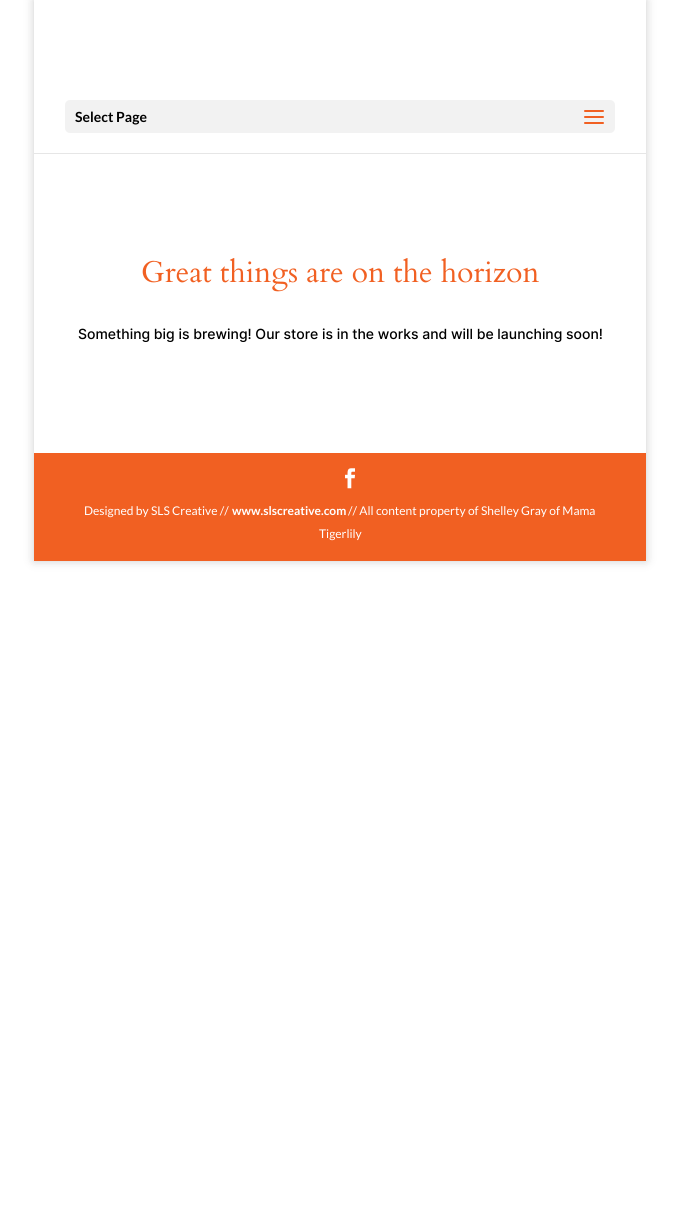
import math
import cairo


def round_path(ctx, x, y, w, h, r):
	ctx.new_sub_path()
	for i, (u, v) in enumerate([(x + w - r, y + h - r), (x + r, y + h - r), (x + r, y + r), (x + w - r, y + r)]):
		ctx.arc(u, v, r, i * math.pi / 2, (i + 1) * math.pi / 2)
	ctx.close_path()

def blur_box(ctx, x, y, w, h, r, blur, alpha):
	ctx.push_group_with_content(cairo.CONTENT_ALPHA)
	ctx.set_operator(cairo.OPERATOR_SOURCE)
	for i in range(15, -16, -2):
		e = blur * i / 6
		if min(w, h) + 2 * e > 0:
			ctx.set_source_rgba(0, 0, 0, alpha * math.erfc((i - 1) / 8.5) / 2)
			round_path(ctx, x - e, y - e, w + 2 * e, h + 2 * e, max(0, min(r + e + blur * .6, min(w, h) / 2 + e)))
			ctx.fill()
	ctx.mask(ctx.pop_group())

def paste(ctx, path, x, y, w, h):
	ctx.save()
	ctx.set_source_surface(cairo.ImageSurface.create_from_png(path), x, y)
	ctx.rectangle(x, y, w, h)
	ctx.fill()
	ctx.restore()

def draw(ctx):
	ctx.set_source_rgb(1, 1, 1)
	ctx.paint()
	ctx.save()
	ctx.set_fill_rule(cairo.FILL_RULE_EVEN_ODD)
	ctx.new_path()
	ctx.move_to(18, 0)
	ctx.line_to(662, 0)
	ctx.line_to(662, 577)
	ctx.line_to(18, 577)
	ctx.close_path()
	ctx.move_to(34, 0)
	ctx.line_to(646, 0)
	ctx.line_to(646, 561)
	ctx.line_to(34, 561)
	ctx.close_path()
	ctx.clip()
	ctx.set_source_rgb(0, 0, 0)
	blur_box(ctx, 34, 0, 612, 561, 0, 5, 0.2)
	ctx.restore()
	ctx.set_source_rgb(0.902, 0.902, 0.902)
	ctx.rectangle(34, 153, 612, 1)
	ctx.fill()
	ctx.set_source_rgb(0.949, 0.949, 0.949)
	round_path(ctx, 65, 100, 550, 33, 5)
	ctx.fill()
	ctx.select_font_face('Lato', cairo.FONT_SLANT_NORMAL, cairo.FONT_WEIGHT_BOLD)
	ctx.set_font_size(14)
	ctx.set_source_rgb(0, 0, 0)
	ctx.move_to(75, 122)
	ctx.show_text('Select Page')
	paste(ctx, 'media/1.png', 584, 110, 20, 14)
	paste(ctx, 'media/2.png', 142, 258, 397, 34)
	ctx.select_font_face('Inter Medium')
	ctx.move_to(78, 339)
	ctx.show_text('Something big is brewing! Our store is in the works and will be launching soon!')
	ctx.set_source_rgb(0.945, 0.376, 0.133)
	ctx.rectangle(34, 453, 612, 108)
	ctx.fill()
	paste(ctx, 'media/3.png', 345, 468, 10, 21)
	ctx.select_font_face('Lato')
	ctx.set_font_size(12)
	ctx.set_source_rgb(1, 1, 1)
	ctx.move_to(84, 515)
	ctx.show_text('Designed by SLS Creative //')
	ctx.select_font_face('Lato', cairo.FONT_SLANT_NORMAL, cairo.FONT_WEIGHT_BOLD)
	ctx.move_to(232, 515)
	ctx.show_text('www.slscreative.com')
	ctx.select_font_face('Lato')
	ctx.move_to(348, 515)
	ctx.show_text('// All content property of Shelley Gray of Mama')
	ctx.move_to(319, 538)
	ctx.show_text('Tigerlily')


surface = cairo.ImageSurface(cairo.FORMAT_RGB24, 680, 1219)
ctx = cairo.Context(surface)
options = cairo.FontOptions()
options.set_hint_metrics(cairo.HINT_METRICS_OFF)
options.set_hint_style(cairo.HINT_STYLE_NONE)
ctx.set_font_options(options)
ctx.set_miter_limit(4)
draw(ctx)
surface.write_to_png('image.png')
